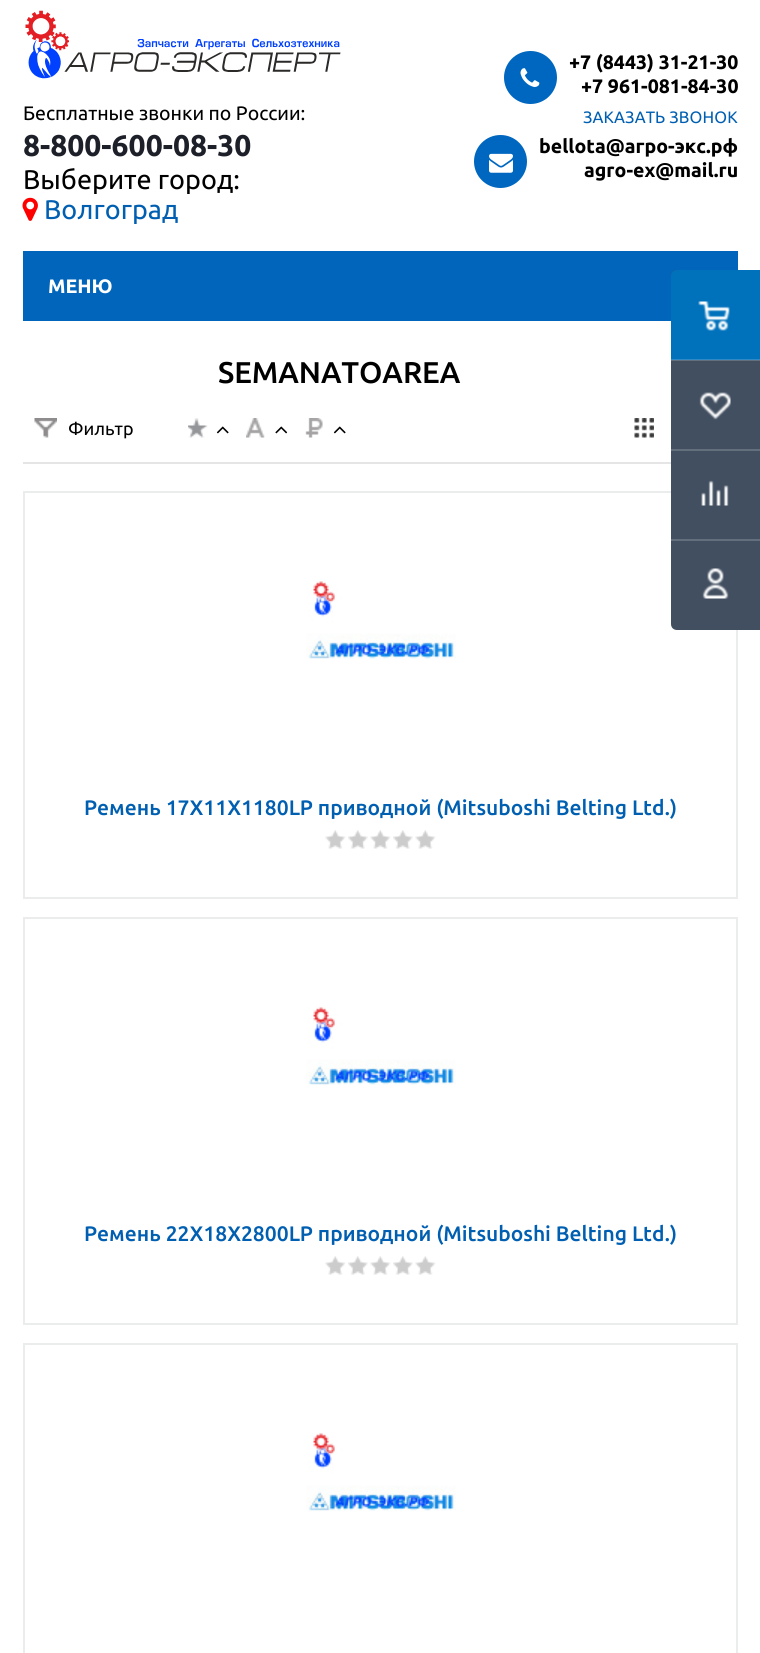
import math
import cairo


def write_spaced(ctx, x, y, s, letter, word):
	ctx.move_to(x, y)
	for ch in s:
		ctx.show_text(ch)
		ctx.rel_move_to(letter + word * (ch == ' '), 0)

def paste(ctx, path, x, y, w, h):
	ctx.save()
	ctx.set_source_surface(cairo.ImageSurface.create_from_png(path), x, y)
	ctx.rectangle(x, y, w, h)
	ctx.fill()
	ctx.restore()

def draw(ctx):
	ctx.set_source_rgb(1, 1, 1)
	ctx.paint()
	paste(ctx, 'media/1.png', 25, 10, 316, 69)
	ctx.select_font_face('Ubuntu')
	ctx.set_font_size(19.5)
	ctx.set_source_rgb(0, 0, 0)
	ctx.move_to(23, 120)
	ctx.show_text('Бесплатные звонки по России:')
	ctx.select_font_face('Ubuntu', cairo.FONT_SLANT_NORMAL, cairo.FONT_WEIGHT_BOLD)
	ctx.set_font_size(30)
	ctx.set_source_rgb(0.114, 0.125, 0.161)
	ctx.move_to(23, 156)
	ctx.show_text('8-800-600-08-30')
	ctx.select_font_face('Ubuntu')
	ctx.set_font_size(27)
	ctx.set_source_rgb(0, 0, 0)
	ctx.move_to(23, 189)
	ctx.show_text('Выберите город:')
	paste(ctx, 'media/2.png', 22, 197, 16, 24)
	ctx.set_source_rgb(0, 0.373, 0.694)
	ctx.move_to(44, 219)
	ctx.show_text('Волгоград')
	ctx.set_source_rgb(0, 0.404, 0.753)
	ctx.new_path()
	ctx.arc(530.5, 77.5, 26.5, 0, 2 * math.pi)
	ctx.fill()
	paste(ctx, 'media/3.png', 520, 68, 20, 19)
	ctx.select_font_face('Ubuntu', cairo.FONT_SLANT_NORMAL, cairo.FONT_WEIGHT_BOLD)
	ctx.set_font_size(19.5)
	ctx.set_source_rgb(0, 0, 0)
	ctx.move_to(569, 69)
	ctx.show_text('+7 (8443) 31-21-30')
	ctx.move_to(581, 93)
	ctx.show_text('+7 961-081-84-30')
	ctx.select_font_face('Ubuntu')
	ctx.set_font_size(16.5)
	ctx.set_source_rgb(0, 0.373, 0.694)
	write_spaced(ctx, 583, 123, 'ЗАКАЗАТЬ ЗВОНОК', 0.1, 0)
	ctx.set_source_rgb(0, 0.404, 0.753)
	ctx.new_path()
	ctx.arc(500.5, 161.5, 26.5, 0, 2 * math.pi)
	ctx.fill()
	paste(ctx, 'media/4.png', 489, 153, 24, 20)
	ctx.select_font_face('Ubuntu', cairo.FONT_SLANT_NORMAL, cairo.FONT_WEIGHT_BOLD)
	ctx.set_font_size(19.5)
	ctx.set_source_rgb(0, 0, 0)
	ctx.move_to(539, 153)
	ctx.show_text('bellota@агро-экс.рф')
	ctx.move_to(584, 177)
	ctx.show_text('agro-ex@mail.ru')
	ctx.set_source_rgb(0, 0.396, 0.733)
	ctx.rectangle(23, 251, 715, 70)
	ctx.fill()
	ctx.rectangle(24, 492, 713, 406)
	ctx.set_source_rgb(0.918, 0.922, 0.925)
	ctx.stroke()
	ctx.set_source_rgb(0.259, 0.31, 0.376)
	ctx.new_path()
	ctx.move_to(677, 270)
	ctx.line_to(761, 270)
	ctx.line_to(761, 630)
	ctx.line_to(677, 630)
	ctx.curve_to(673.5, 630, 671, 627.5, 671, 624)
	ctx.line_to(671, 276)
	ctx.curve_to(671, 272.5, 673.5, 270, 677, 270)
	ctx.close_path()
	ctx.fill()
	ctx.set_source_rgb(0.388, 0.435, 0.49)
	ctx.rectangle(671, 360, 89, 1)
	ctx.fill()
	ctx.set_source_rgb(0, 0.443, 0.733)
	ctx.new_path()
	ctx.move_to(677, 270)
	ctx.line_to(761, 270)
	ctx.line_to(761, 360)
	ctx.line_to(671, 360)
	ctx.line_to(671, 276)
	ctx.curve_to(671, 272.5, 673.5, 270, 677, 270)
	ctx.close_path()
	ctx.fill()
	ctx.set_source_rgb(0.18, 0.541, 0.776)
	ctx.rectangle(671, 359, 89, 1)
	ctx.fill()
	paste(ctx, 'media/5.png', 698, 301, 32, 30)
	paste(ctx, 'media/6.png', 699, 392, 32, 28)
	ctx.set_source_rgb(0.388, 0.435, 0.49)
	ctx.rectangle(671, 449, 89, 2)
	ctx.fill()
	paste(ctx, 'media/7.png', 701, 480, 28, 26)
	ctx.rectangle(671, 539, 89, 2)
	ctx.fill()
	paste(ctx, 'media/8.png', 702, 568, 27, 31)
	ctx.set_source_rgb(1, 1, 1)
	ctx.move_to(48, 293)
	ctx.show_text('МЕНЮ')
	ctx.select_font_face('Ubuntu Medium')
	ctx.set_font_size(30)
	ctx.set_source_rgb(0, 0, 0)
	ctx.move_to(218, 383)
	ctx.show_text('SEMANATOAREA')
	ctx.set_source_rgb(0.898, 0.898, 0.898)
	ctx.rectangle(23, 462, 648, 2)
	ctx.fill()
	paste(ctx, 'media/9.png', 188, 418, 20, 20)
	paste(ctx, 'media/10.png', 216, 426, 13, 8)
	paste(ctx, 'media/11.png', 246, 418, 19, 20)
	paste(ctx, 'media/12.png', 275, 426, 13, 8)
	paste(ctx, 'media/13.png', 305, 418, 18, 20)
	paste(ctx, 'media/10.png', 333, 426, 13, 8)
	paste(ctx, 'media/14.png', 634, 418, 20, 20)
	paste(ctx, 'media/15.png', 34, 418, 23, 20)
	ctx.select_font_face('Ubuntu')
	ctx.set_font_size(18)
	ctx.set_source_rgb(0, 0, 0)
	ctx.move_to(68, 435)
	ctx.show_text('Фильтр')
	paste(ctx, 'media/16.png', 306, 581, 150, 78)
	ctx.select_font_face('Ubuntu Medium')
	ctx.set_font_size(21)
	ctx.set_source_rgb(0, 0.373, 0.694)
	ctx.move_to(84, 815)
	ctx.show_text('Ремень 17X11X1180LP приводной (Mitsuboshi Belting Ltd.)')
	paste(ctx, 'media/17.png', 325, 830, 21, 19)
	paste(ctx, 'media/18.png', 348, 830, 20, 19)
	paste(ctx, 'media/19.png', 370, 830, 21, 19)
	paste(ctx, 'media/18.png', 393, 830, 20, 19)
	paste(ctx, 'media/19.png', 415, 830, 21, 19)
	ctx.rectangle(24, 918, 713, 406)
	ctx.set_source_rgb(0.918, 0.922, 0.925)
	ctx.stroke()
	paste(ctx, 'media/16.png', 306, 1007, 150, 78)
	ctx.set_source_rgb(0, 0.373, 0.694)
	ctx.move_to(84, 1241)
	ctx.show_text('Ремень 22X18X2800LP приводной (Mitsuboshi Belting Ltd.)')
	paste(ctx, 'media/17.png', 325, 1256, 21, 19)
	paste(ctx, 'media/18.png', 348, 1256, 20, 19)
	paste(ctx, 'media/19.png', 370, 1256, 21, 19)
	paste(ctx, 'media/18.png', 393, 1256, 20, 19)
	paste(ctx, 'media/19.png', 415, 1256, 21, 19)
	ctx.rectangle(24, 1344, 713, 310)
	ctx.set_source_rgb(0.918, 0.922, 0.925)
	ctx.stroke()
	paste(ctx, 'media/16.png', 306, 1433, 150, 78)


surface = cairo.ImageSurface(cairo.FORMAT_RGB24, 760, 1653)
ctx = cairo.Context(surface)
options = cairo.FontOptions()
options.set_hint_metrics(cairo.HINT_METRICS_OFF)
options.set_hint_style(cairo.HINT_STYLE_NONE)
ctx.set_font_options(options)
ctx.set_miter_limit(4)
draw(ctx)
surface.write_to_png('image.png')
